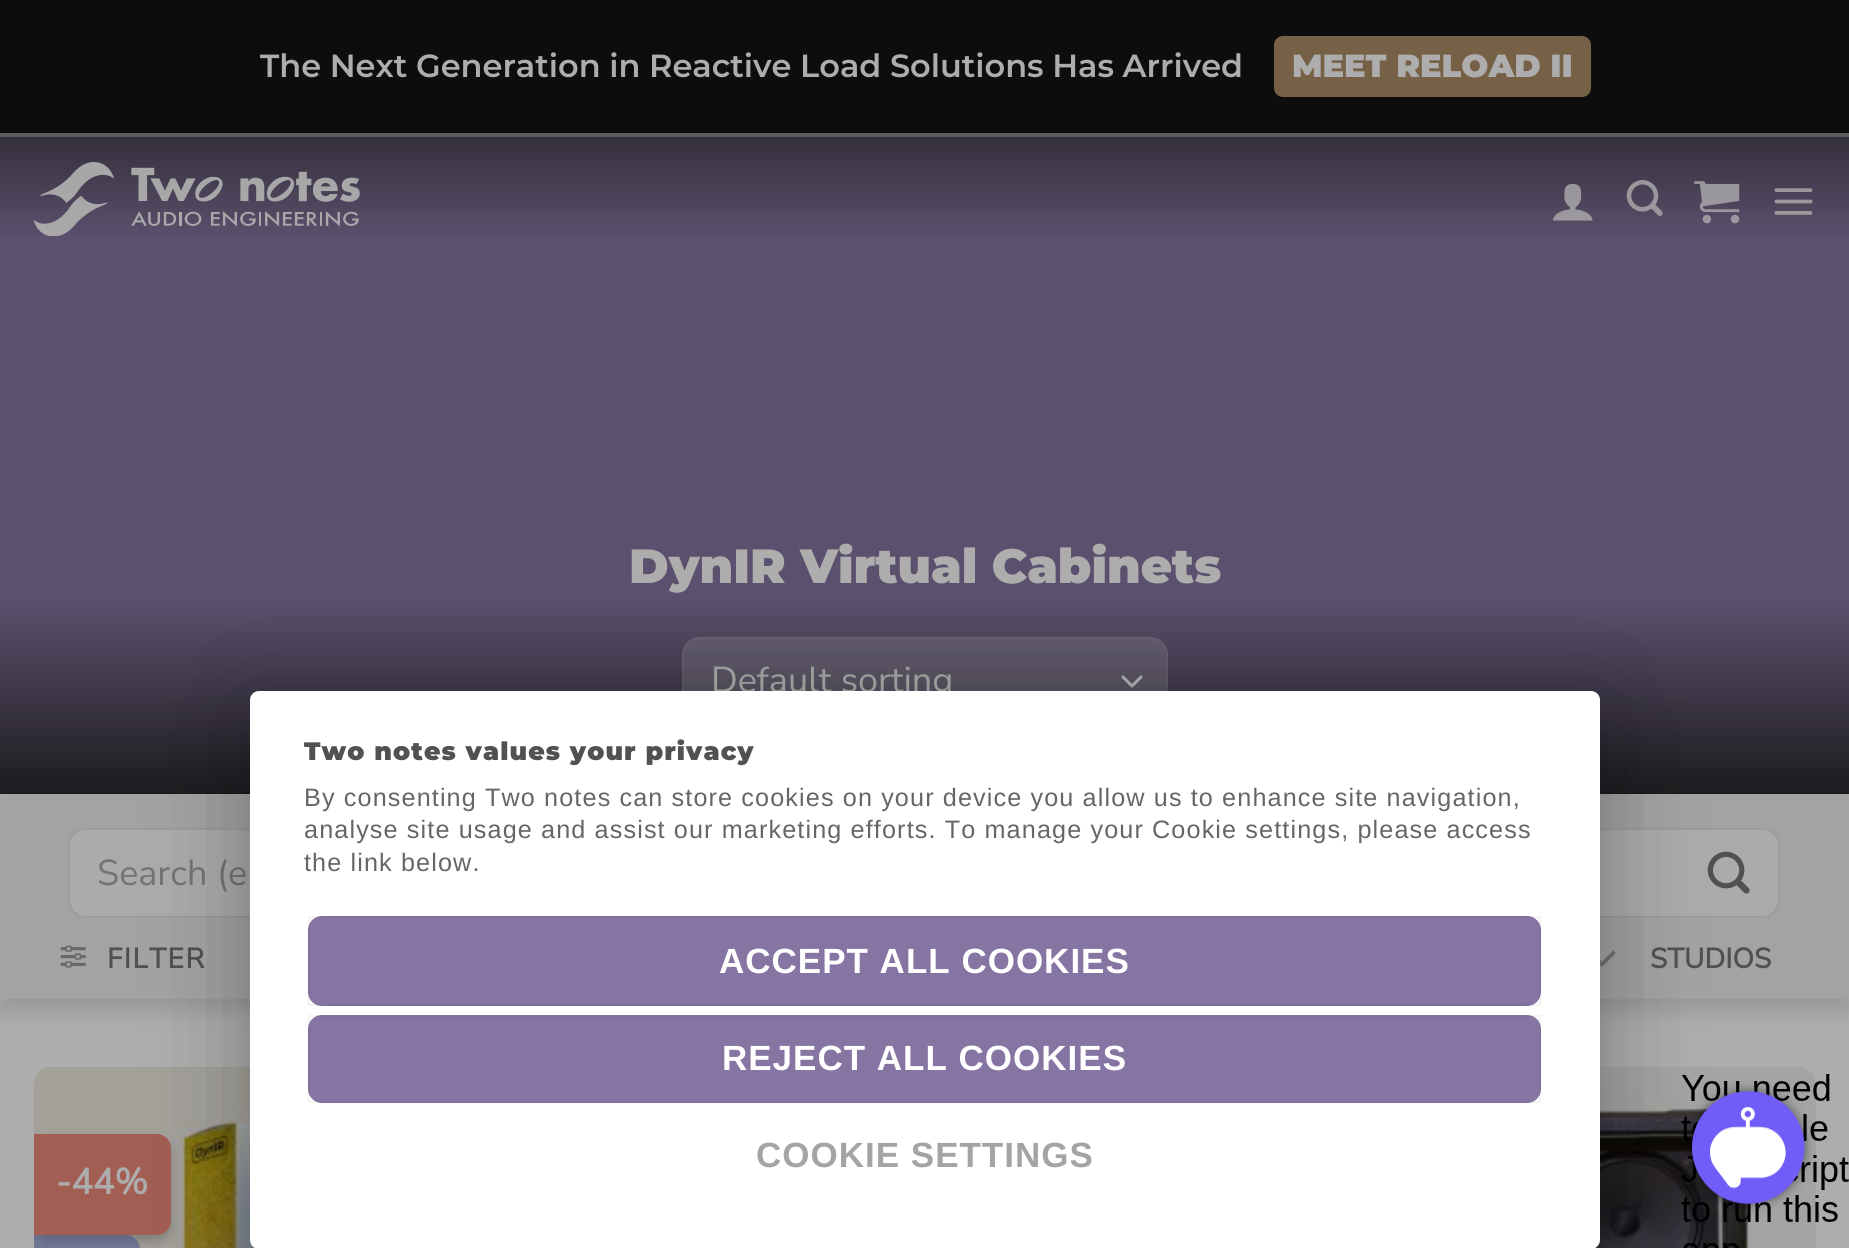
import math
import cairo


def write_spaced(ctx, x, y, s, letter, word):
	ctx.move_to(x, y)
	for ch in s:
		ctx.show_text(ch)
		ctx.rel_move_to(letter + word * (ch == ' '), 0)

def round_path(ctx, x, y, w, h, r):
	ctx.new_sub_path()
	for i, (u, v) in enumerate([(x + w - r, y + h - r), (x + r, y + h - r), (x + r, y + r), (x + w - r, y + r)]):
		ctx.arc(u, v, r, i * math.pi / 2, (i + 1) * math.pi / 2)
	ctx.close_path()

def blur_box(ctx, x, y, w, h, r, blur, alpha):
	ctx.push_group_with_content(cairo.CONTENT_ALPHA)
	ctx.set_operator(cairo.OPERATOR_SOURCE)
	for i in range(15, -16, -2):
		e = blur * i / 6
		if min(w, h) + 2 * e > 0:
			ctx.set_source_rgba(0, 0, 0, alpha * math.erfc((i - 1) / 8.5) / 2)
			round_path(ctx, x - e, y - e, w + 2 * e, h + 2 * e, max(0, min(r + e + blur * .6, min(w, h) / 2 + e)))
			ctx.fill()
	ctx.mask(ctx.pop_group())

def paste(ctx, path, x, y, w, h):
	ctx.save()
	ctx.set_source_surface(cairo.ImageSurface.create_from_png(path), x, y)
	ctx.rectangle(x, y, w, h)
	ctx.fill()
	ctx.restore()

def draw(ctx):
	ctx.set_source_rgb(0.051, 0.051, 0.051)
	ctx.paint()
	ctx.set_source_rgb(0.361, 0.361, 0.361)
	ctx.rectangle(0, 133, 1849, 4)
	ctx.fill()
	ctx.select_font_face('Montserrat SemiBold')
	ctx.set_font_size(32)
	ctx.set_source_rgb(0.678, 0.678, 0.678)
	write_spaced(ctx, 260, 77, 'The Next Generation in Reactive Load Solutions Has Arrived', 0, -0.25)
	ctx.set_source_rgb(0.463, 0.38, 0.278)
	round_path(ctx, 1274, 36, 317, 61, 9)
	ctx.fill()
	ctx.select_font_face('Montserrat Black')
	ctx.set_source_rgb(0.678, 0.678, 0.678)
	ctx.move_to(1292, 77)
	ctx.show_text('MEET RELOAD II')
	ctx.rectangle(0, 999, 1849, 249)
	ctx.fill()
	gradient = cairo.LinearGradient(925, 72, 925, 794)
	gradient.add_color_stop_rgba(0, 0.11, 0.106, 0.118, 1)
	gradient.add_color_stop_rgba(0.23, 0.357, 0.314, 0.427, 1)
	gradient.add_color_stop_rgba(0.73, 0.357, 0.314, 0.427, 1)
	gradient.add_color_stop_rgba(1, 0.11, 0.106, 0.118, 1)
	ctx.set_source(gradient)
	ctx.rectangle(0, 137, 1849, 657)
	ctx.fill()
	paste(ctx, 'media/1.png', 34, 162, 326, 74)
	paste(ctx, 'media/2.png', 1553, 183, 40, 38)
	paste(ctx, 'media/3.png', 1626, 180, 37, 36)
	paste(ctx, 'media/4.png', 1694, 181, 46, 43)
	paste(ctx, 'media/5.png', 1774, 188, 39, 27)
	ctx.set_font_size(48)
	ctx.set_source_rgb(0.678, 0.678, 0.678)
	ctx.move_to(629, 583)
	ctx.show_text('DynIR Virtual Cabinets')
	ctx.set_source_rgba(0.678, 0.678, 0.678, 0.2)
	round_path(ctx, 682, 637, 486, 90, 18)
	ctx.fill()
	ctx.new_path()
	ctx.move_to(1123, 677)
	ctx.line_to(1132, 686)
	ctx.line_to(1141, 677)
	ctx.set_source_rgb(0.678, 0.678, 0.678)
	ctx.set_line_width(3)
	ctx.set_line_cap(cairo.LINE_CAP_ROUND)
	ctx.set_line_join(cairo.LINE_JOIN_ROUND)
	ctx.stroke()
	round_path(ctx, 683, 638, 484, 88, 17)
	ctx.set_source_rgba(0.678, 0.678, 0.678, 0.09)
	ctx.set_line_width(2)
	ctx.set_line_cap(cairo.LINE_CAP_BUTT)
	ctx.set_line_join(cairo.LINE_JOIN_MITER)
	ctx.stroke()
	ctx.select_font_face('Nunito Sans')
	ctx.set_font_size(36)
	ctx.set_source_rgb(0.643, 0.643, 0.643)
	ctx.move_to(711, 692)
	ctx.show_text('Default sorting')
	ctx.set_source_rgb(0, 0, 0)
	blur_box(ctx, 0, 806, 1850, 204, 0, 11, 0.13)
	ctx.set_source_rgb(0.639, 0.639, 0.639)
	ctx.rectangle(0, 794, 1849, 205)
	ctx.fill()
	ctx.set_source_rgb(0.671, 0.671, 0.671)
	round_path(ctx, 68, 828, 1712, 90, 18)
	ctx.fill()
	round_path(ctx, 69, 829, 1710, 88, 17)
	ctx.set_source_rgba(0, 0, 0, 0.09)
	ctx.stroke()
	ctx.set_source_rgb(0.455, 0.455, 0.455)
	ctx.move_to(97, 885)
	ctx.show_text('Search (e')
	paste(ctx, 'media/6.png', 1707, 851, 43, 43)
	paste(ctx, 'media/7.png', 60, 945, 26, 23)
	ctx.select_font_face('Nunito Sans', cairo.FONT_SLANT_NORMAL, cairo.FONT_WEIGHT_BOLD)
	ctx.set_font_size(28)
	ctx.set_source_rgb(0.318, 0.318, 0.318)
	write_spaced(ctx, 107, 968, 'FILTER', 1.5, 0)
	paste(ctx, 'media/8.png', 1600, 950, 16, 17)
	ctx.move_to(1650, 968)
	ctx.show_text('STUDIOS')
	paste(ctx, 'media/9.png', 34, 1067, 221, 181)
	ctx.save()
	round_path(ctx, 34, 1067, 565, 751, 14)
	ctx.clip()
	ctx.set_fill_rule(cairo.FILL_RULE_EVEN_ODD)
	ctx.new_path()
	ctx.move_to(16, 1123)
	ctx.line_to(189, 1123)
	ctx.line_to(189, 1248)
	ctx.line_to(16, 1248)
	ctx.close_path()
	ctx.move_to(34, 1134)
	ctx.line_to(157, 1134)
	ctx.curve_to(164.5, 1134, 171, 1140.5, 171, 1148)
	ctx.line_to(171, 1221)
	ctx.curve_to(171, 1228.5, 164.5, 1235, 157, 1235)
	ctx.line_to(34, 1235)
	ctx.close_path()
	ctx.clip()
	ctx.set_source_rgb(0, 0, 0)
	blur_box(ctx, 34, 1141, 137, 101, 14, 5.5, 0.2)
	ctx.restore()
	ctx.set_source_rgba(0.635, 0.196, 0.137, 0.6)
	ctx.new_path()
	ctx.move_to(34, 1134)
	ctx.line_to(157, 1134)
	ctx.curve_to(164.5, 1134, 171, 1140.5, 171, 1148)
	ctx.line_to(171, 1221)
	ctx.curve_to(171, 1228.5, 164.5, 1235, 157, 1235)
	ctx.line_to(34, 1235)
	ctx.close_path()
	ctx.fill()
	ctx.set_font_size(36)
	ctx.set_source_rgb(0.678, 0.678, 0.678)
	ctx.move_to(56, 1194)
	ctx.show_text('-44%')
	ctx.set_source_rgba(0.184, 0.255, 0.545, 0.42)
	ctx.new_path()
	ctx.move_to(34, 1235)
	ctx.line_to(126, 1235)
	ctx.curve_to(133.5, 1235, 140, 1241.5, 140, 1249)
	ctx.line_to(140, 1248)
	ctx.curve_to(140, 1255.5, 133.5, 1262, 126, 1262)
	ctx.line_to(34, 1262)
	ctx.close_path()
	ctx.fill()
	ctx.set_source_rgb(0.643, 0.643, 0.643)
	round_path(ctx, 1251, 1067, 565, 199, 18)
	ctx.fill()
	paste(ctx, 'media/10.png', 1595, 1067, 214, 181)
	ctx.set_source_rgb(0, 0, 0)
	blur_box(ctx, 232, 693, 1386, 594, 27, 52, 0.12)
	blur_box(ctx, 243, 738, 1364, 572, 16, 43, 0.14)
	blur_box(ctx, 266, 731, 1318, 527, 0, 17, 0.2)
	ctx.set_source_rgb(1, 1, 1)
	round_path(ctx, 250, 691, 1350, 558, 9)
	ctx.fill()
	ctx.select_font_face('Montserrat Black')
	ctx.set_font_size(25.2)
	ctx.set_source_rgb(0.318, 0.318, 0.318)
	write_spaced(ctx, 304, 760, 'Two notes values your privacy', 1.12, 0)
	ctx.select_font_face('Liberation Sans')
	ctx.set_source_rgb(0.4, 0.4, 0.4)
	for x, y, s in [
		(304, 806, 'By consenting Two notes can store cookies on your device you allow us to enhance site navigation,'),
		(304, 838, 'analyse site usage and assist our marketing efforts. To manage your Cookie settings, please access'),
		(304, 871, 'the link below.'),
	]:
		write_spaced(ctx, x, y, s, 1.12, 0)
	ctx.set_source_rgb(0.525, 0.459, 0.639)
	round_path(ctx, 308, 916, 1233, 90, 14)
	ctx.fill()
	ctx.rectangle(309, 917, 1231, 88)
	ctx.set_source_rgba(0, 0, 0, 0.05)
	ctx.stroke()
	ctx.select_font_face('Liberation Sans', cairo.FONT_SLANT_NORMAL, cairo.FONT_WEIGHT_BOLD)
	ctx.set_font_size(35)
	ctx.set_source_rgb(1, 1, 1)
	write_spaced(ctx, 719, 973, 'ACCEPT ALL COOKIES', 1, 0)
	ctx.set_source_rgb(0.525, 0.459, 0.639)
	round_path(ctx, 308, 1015, 1233, 88, 14)
	ctx.fill()
	ctx.rectangle(309, 1016, 1231, 86)
	ctx.set_source_rgba(0, 0, 0, 0.05)
	ctx.stroke()
	ctx.set_source_rgb(1, 1, 1)
	write_spaced(ctx, 722, 1070, 'REJECT ALL COOKIES', 1, 0)
	ctx.set_source_rgb(0.643, 0.643, 0.643)
	write_spaced(ctx, 756, 1167, 'COOKIE SETTINGS', 1, 0)
	paste(ctx, 'media/11.png', 1681, 1074, 168, 174)


surface = cairo.ImageSurface(cairo.FORMAT_RGB24, 1849, 1248)
ctx = cairo.Context(surface)
options = cairo.FontOptions()
options.set_hint_metrics(cairo.HINT_METRICS_OFF)
options.set_hint_style(cairo.HINT_STYLE_NONE)
ctx.set_font_options(options)
ctx.set_miter_limit(4)
draw(ctx)
surface.write_to_png('image.png')
